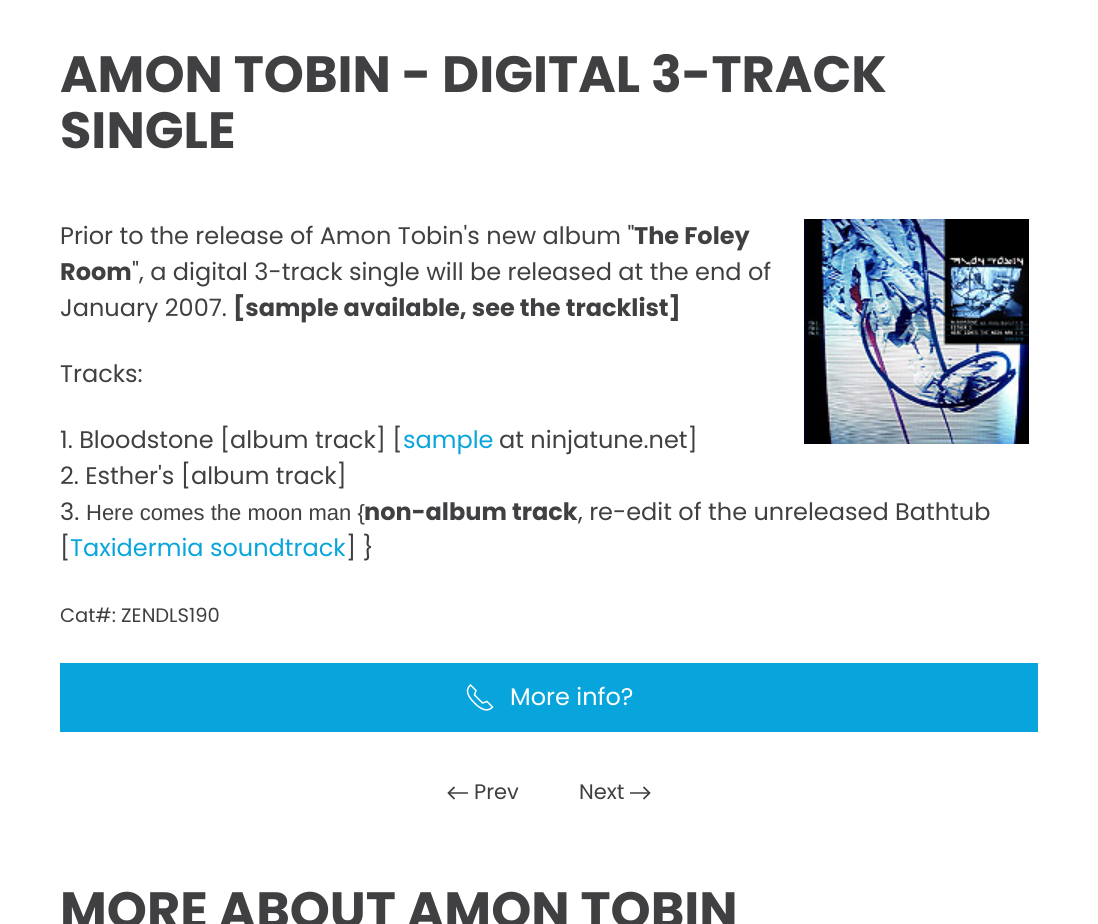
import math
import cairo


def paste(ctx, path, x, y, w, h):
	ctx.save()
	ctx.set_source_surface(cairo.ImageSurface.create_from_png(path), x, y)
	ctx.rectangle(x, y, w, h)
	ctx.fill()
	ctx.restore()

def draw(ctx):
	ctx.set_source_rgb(1, 1, 1)
	ctx.paint()
	ctx.select_font_face('Poppins', cairo.FONT_SLANT_NORMAL, cairo.FONT_WEIGHT_BOLD)
	ctx.set_font_size(51)
	ctx.set_source_rgb(0.251, 0.251, 0.259)
	ctx.move_to(60, 92)
	ctx.show_text('AMON TOBIN - DIGITAL 3-TRACK')
	ctx.move_to(60, 148)
	ctx.show_text('SINGLE')
	ctx.select_font_face('Poppins')
	ctx.set_font_size(24)
	ctx.move_to(60, 244)
	ctx.show_text('Prior to the release of Amon Tobin\'s new album "')
	ctx.select_font_face('Poppins', cairo.FONT_SLANT_NORMAL, cairo.FONT_WEIGHT_BOLD)
	ctx.move_to(634, 244)
	ctx.show_text('The Foley')
	paste(ctx, 'media/1.png', 804, 219, 225, 225)
	ctx.move_to(60, 280)
	ctx.show_text('Room')
	ctx.select_font_face('Poppins')
	ctx.move_to(132, 280)
	ctx.show_text('", a digital 3-track single will be released at the end of')
	ctx.move_to(60, 316)
	ctx.show_text('January 2007.')
	ctx.select_font_face('Poppins', cairo.FONT_SLANT_NORMAL, cairo.FONT_WEIGHT_BOLD)
	ctx.move_to(233, 316)
	ctx.show_text('[sample available, see the tracklist]')
	ctx.select_font_face('Poppins')
	ctx.move_to(60, 382)
	ctx.show_text('Tracks:')
	ctx.move_to(60, 448)
	ctx.show_text('1. Bloodstone [album track] [')
	ctx.set_source_rgb(0.035, 0.647, 0.863)
	ctx.move_to(403, 448)
	ctx.show_text('sample')
	ctx.set_source_rgb(0.251, 0.251, 0.259)
	for x, y, s in [
		(499, 448, 'at ninjatune.net]'),
		(60, 484, '2. Esther\'s [album track]'),
		(60, 520, '3.'),
	]:
		ctx.move_to(x, y)
		ctx.show_text(s)
	ctx.select_font_face('Liberation Sans')
	ctx.set_font_size(22)
	ctx.move_to(86, 520)
	ctx.show_text('Here comes the moon man {')
	ctx.select_font_face('Poppins', cairo.FONT_SLANT_NORMAL, cairo.FONT_WEIGHT_BOLD)
	ctx.set_font_size(24)
	ctx.move_to(364, 520)
	ctx.show_text('non-album track')
	ctx.select_font_face('Poppins')
	ctx.move_to(578, 520)
	ctx.show_text(', re-edit of the unreleased Bathtub')
	ctx.move_to(60, 556)
	ctx.show_text('[')
	ctx.set_source_rgb(0.035, 0.647, 0.863)
	ctx.move_to(70, 556)
	ctx.show_text('Taxidermia soundtrack')
	ctx.set_source_rgb(0.251, 0.251, 0.259)
	ctx.move_to(346, 556)
	ctx.show_text('] }')
	ctx.set_font_size(19.5)
	ctx.move_to(60, 622)
	ctx.show_text('Cat#: ZENDLS190')
	ctx.set_source_rgb(0.035, 0.647, 0.863)
	ctx.rectangle(60, 663, 978, 69)
	ctx.fill()
	ctx.new_path()
	ctx.move_to(474.5, 703)
	ctx.curve_to(479, 707.5, 486.5, 713.5, 492.5, 707)
	ctx.line_to(487, 701.5)
	ctx.line_to(482.5, 703)
	ctx.line_to(474.5, 695)
	ctx.line_to(476, 690.5)
	ctx.line_to(470.5, 685)
	ctx.curve_to(464, 691, 469.5, 698, 474.5, 703)
	ctx.set_source_rgb(1, 1, 1)
	ctx.set_line_width(1.5)
	ctx.stroke()
	ctx.set_font_size(24)
	ctx.move_to(510, 705)
	ctx.show_text('More info?')
	ctx.new_path()
	ctx.move_to(454.5, 799)
	ctx.line_to(448.5, 793)
	ctx.line_to(454.5, 787)
	ctx.set_source_rgb(0.239, 0.239, 0.239)
	ctx.set_line_width(1.7)
	ctx.stroke()
	ctx.set_source_rgba(0.239, 0.239, 0.239, 0.75)
	ctx.rectangle(449, 792, 19, 2)
	ctx.fill()
	ctx.set_font_size(21)
	ctx.set_source_rgb(0.251, 0.251, 0.259)
	ctx.move_to(474, 799)
	ctx.show_text('Prev')
	ctx.move_to(579, 799)
	ctx.show_text('Next')
	ctx.new_path()
	ctx.move_to(643.5, 787)
	ctx.line_to(649.5, 793)
	ctx.line_to(643.5, 799)
	ctx.set_source_rgb(0.239, 0.239, 0.239)
	ctx.stroke()
	ctx.set_source_rgba(0.239, 0.239, 0.239, 0.75)
	ctx.rectangle(630, 792, 20, 2)
	ctx.fill()
	ctx.select_font_face('Poppins', cairo.FONT_SLANT_NORMAL, cairo.FONT_WEIGHT_BOLD)
	ctx.set_font_size(51)
	ctx.set_source_rgb(0.251, 0.251, 0.259)
	ctx.move_to(60, 928)
	ctx.show_text('MORE ABOUT AMON TOBIN')


surface = cairo.ImageSurface(cairo.FORMAT_RGB24, 1098, 924)
ctx = cairo.Context(surface)
options = cairo.FontOptions()
options.set_hint_metrics(cairo.HINT_METRICS_OFF)
options.set_hint_style(cairo.HINT_STYLE_NONE)
ctx.set_font_options(options)
ctx.set_miter_limit(4)
draw(ctx)
surface.write_to_png('image.png')
